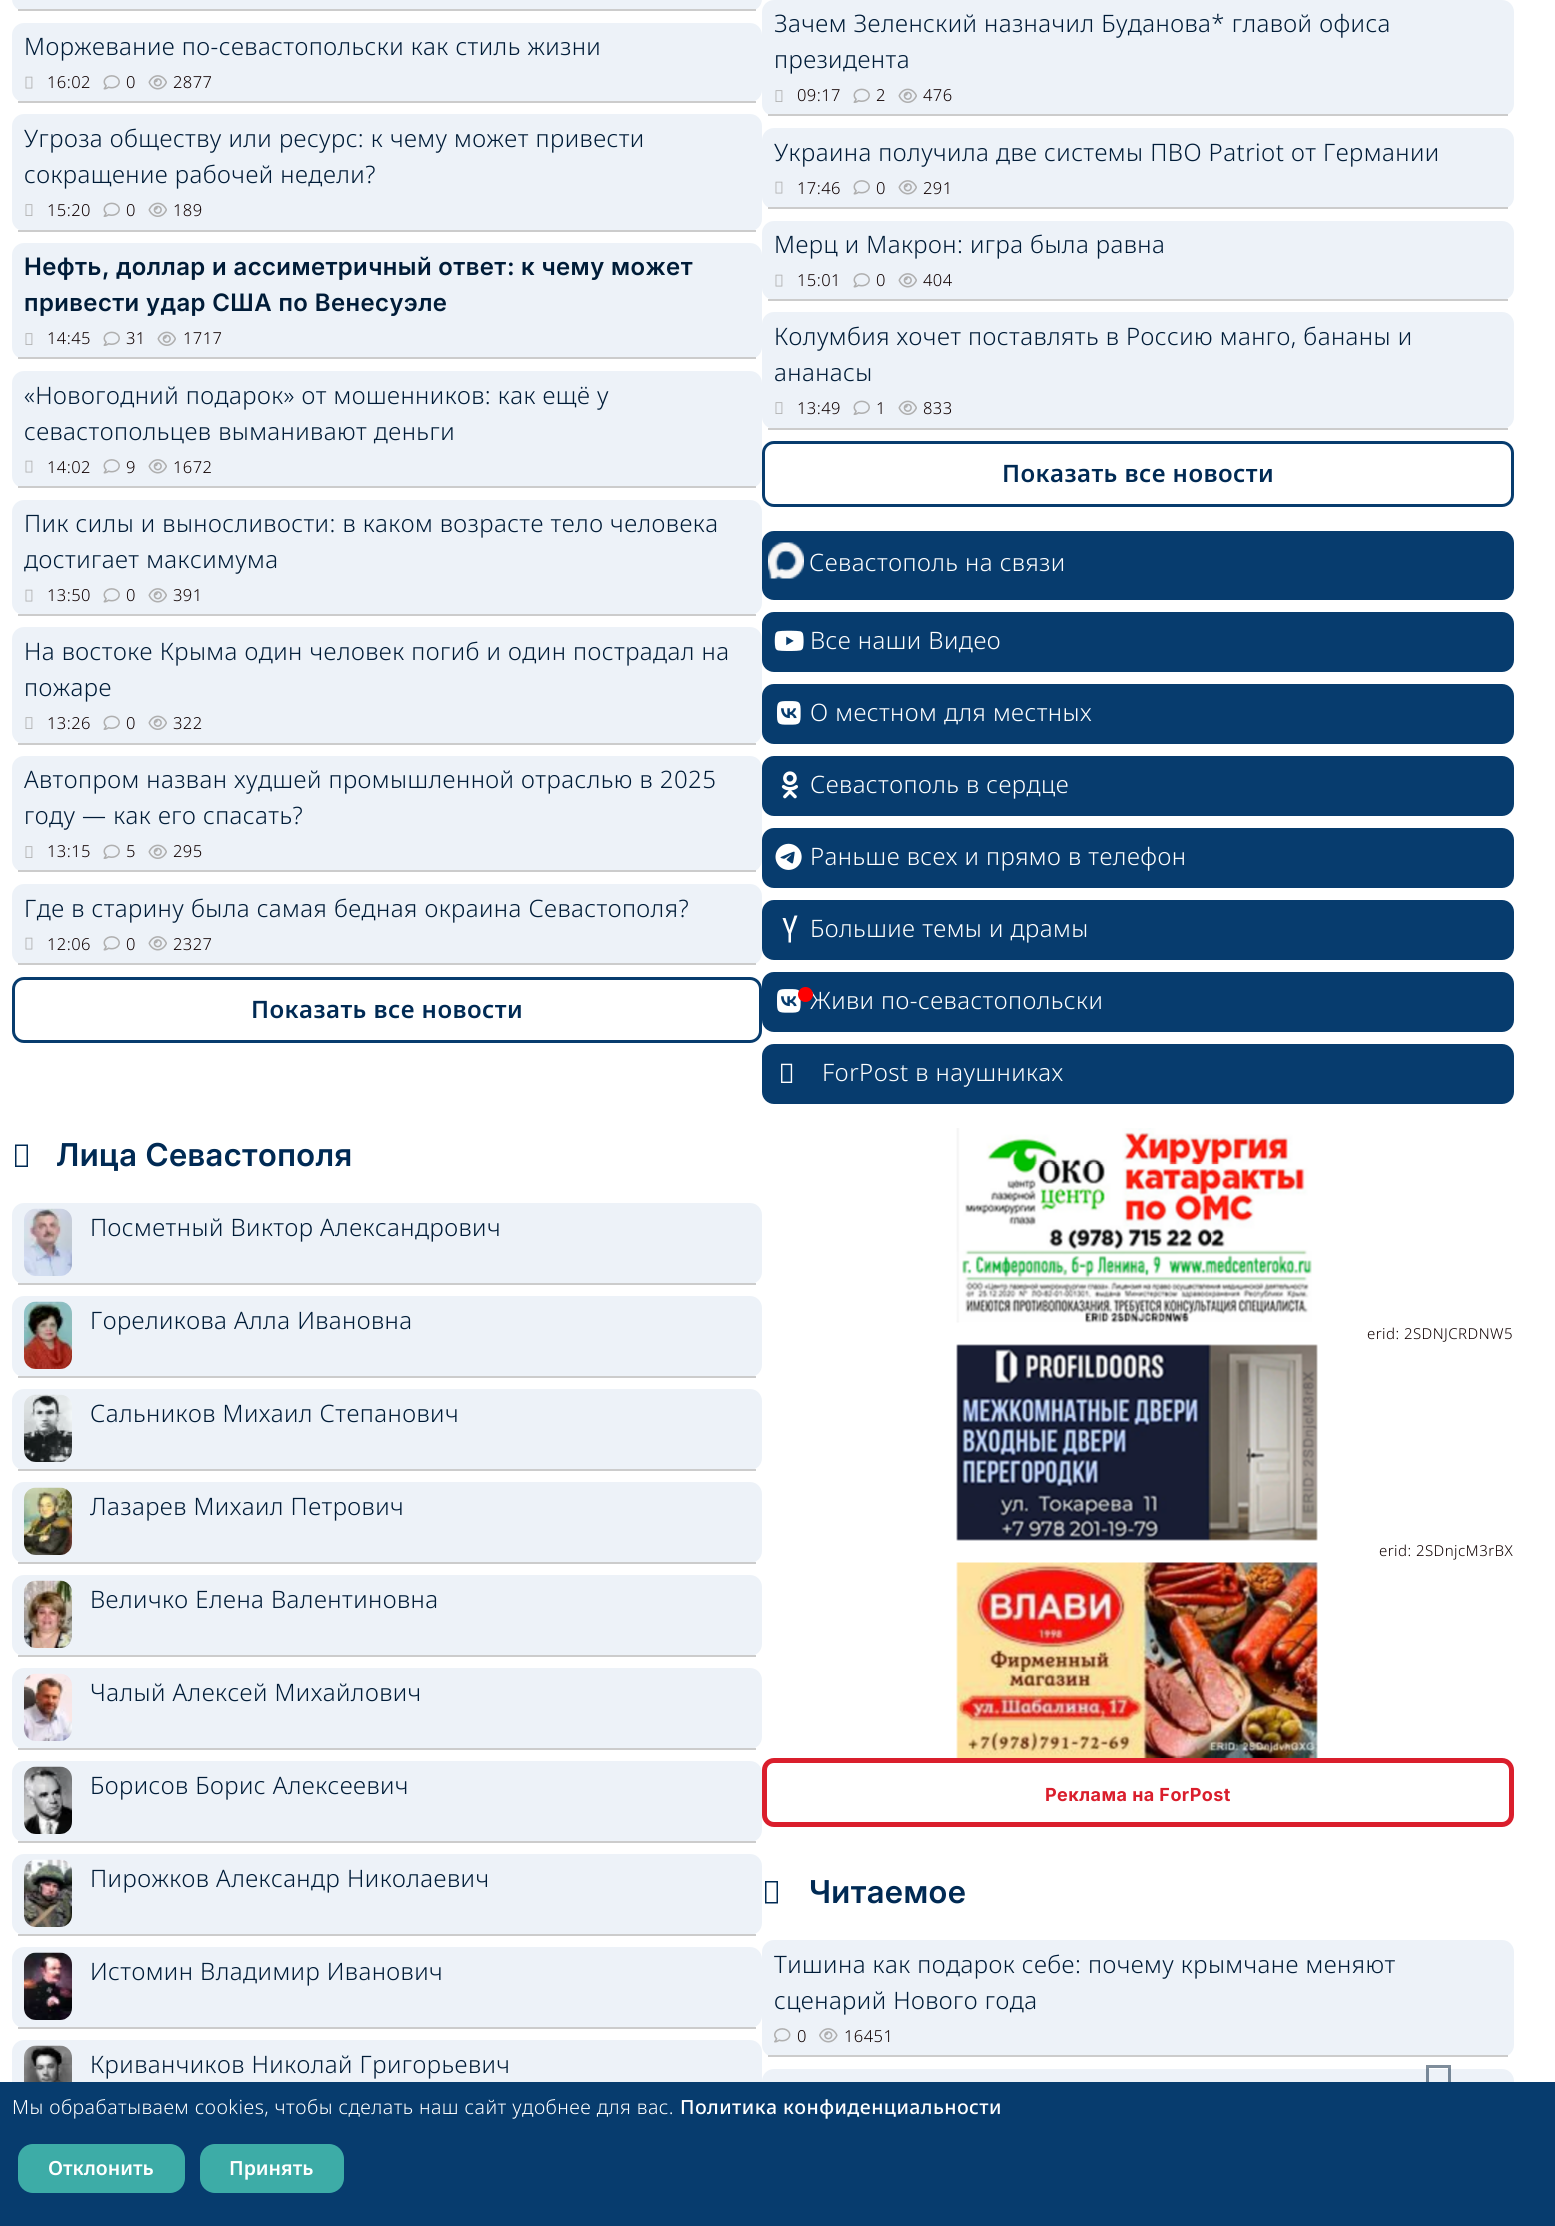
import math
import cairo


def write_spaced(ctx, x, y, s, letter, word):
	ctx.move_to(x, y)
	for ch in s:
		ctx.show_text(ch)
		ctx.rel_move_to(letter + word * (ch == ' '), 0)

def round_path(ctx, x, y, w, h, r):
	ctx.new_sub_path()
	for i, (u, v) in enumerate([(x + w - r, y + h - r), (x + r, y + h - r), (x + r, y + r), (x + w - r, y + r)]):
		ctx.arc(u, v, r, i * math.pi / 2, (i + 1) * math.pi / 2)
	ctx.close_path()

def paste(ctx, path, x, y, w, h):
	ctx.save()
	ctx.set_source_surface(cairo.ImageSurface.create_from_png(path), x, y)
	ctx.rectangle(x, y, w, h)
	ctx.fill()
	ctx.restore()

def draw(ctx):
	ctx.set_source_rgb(1, 1, 1)
	ctx.paint()
	ctx.set_source_rgb(0.929, 0.949, 0.969)
	round_path(ctx, 12, -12, 750, 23, 12)
	ctx.fill()
	ctx.set_source_rgb(0.8, 0.8, 0.8)
	ctx.rectangle(18, 9, 738, 2)
	ctx.fill()
	ctx.set_source_rgb(0.929, 0.949, 0.969)
	round_path(ctx, 12, 23, 750, 79, 12)
	ctx.fill()
	ctx.set_source_rgb(0.8, 0.8, 0.8)
	ctx.rectangle(18, 101, 738, 2)
	ctx.fill()
	ctx.select_font_face('Noto Sans Light')
	ctx.set_font_size(24)
	ctx.set_source_rgb(0, 0.11, 0.22)
	write_spaced(ctx, 24, 55, 'Моржевание по-севастопольски как стиль жизни', 0.45, 0)
	paste(ctx, 'media/1.png', 25, 76, 8, 13)
	ctx.set_font_size(16.5)
	ctx.set_source_rgb(0.059, 0, 0)
	write_spaced(ctx, 47, 88, '16:02', 0.45, 0)
	paste(ctx, 'media/2.png', 103, 75, 17, 15)
	write_spaced(ctx, 126, 88, '0', 0.45, 0)
	paste(ctx, 'media/3.png', 148, 75, 19, 15)
	write_spaced(ctx, 173, 88, '2877', 0.45, 0)
	ctx.set_source_rgb(0.929, 0.949, 0.969)
	round_path(ctx, 12, 114, 750, 117, 12)
	ctx.fill()
	ctx.set_source_rgb(0.8, 0.8, 0.8)
	ctx.rectangle(18, 230, 738, 2)
	ctx.fill()
	ctx.set_font_size(24)
	ctx.set_source_rgb(0, 0.11, 0.22)
	write_spaced(ctx, 24, 147, 'Угроза обществу или ресурс: к чему может привести', 0.45, 0)
	write_spaced(ctx, 24, 183, 'сокращение рабочей недели?', 0.45, 0)
	paste(ctx, 'media/4.png', 25, 204, 8, 12)
	ctx.set_font_size(16.5)
	ctx.set_source_rgb(0.059, 0, 0)
	write_spaced(ctx, 47, 216, '15:20', 0.45, 0)
	paste(ctx, 'media/5.png', 103, 202, 17, 15)
	write_spaced(ctx, 126, 216, '0', 0.45, 0)
	paste(ctx, 'media/6.png', 148, 202, 19, 15)
	write_spaced(ctx, 173, 216, '189', 0.45, 0)
	ctx.set_source_rgb(0.929, 0.949, 0.969)
	round_path(ctx, 12, 243, 750, 116, 12)
	ctx.fill()
	ctx.set_source_rgb(0.8, 0.8, 0.8)
	ctx.rectangle(18, 357, 738, 2)
	ctx.fill()
	ctx.select_font_face('Inter SemiBold')
	ctx.set_font_size(24)
	ctx.set_source_rgb(0, 0.11, 0.22)
	write_spaced(ctx, 24, 275, 'Нефть', 0.45, 0)
	ctx.select_font_face('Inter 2 SemiBold')
	write_spaced(ctx, 102, 275, ',', 0.45, 0)
	ctx.select_font_face('Inter SemiBold')
	write_spaced(ctx, 116, 275, 'доллар и ассиметричный ответ', 0.45, 0)
	ctx.select_font_face('Inter 2 SemiBold')
	write_spaced(ctx, 507, 275, ':', 0.45, 0)
	ctx.select_font_face('Inter SemiBold')
	write_spaced(ctx, 521, 275, 'к чему может', 0.45, 0)
	write_spaced(ctx, 24, 311, 'привести удар США по Венесуэле', 0.45, 0)
	paste(ctx, 'media/4.png', 25, 333, 8, 12)
	ctx.select_font_face('Noto Sans Light')
	ctx.set_font_size(16.5)
	ctx.set_source_rgb(0.059, 0, 0)
	write_spaced(ctx, 47, 344, '14:45', 0.45, 0)
	paste(ctx, 'media/5.png', 103, 331, 17, 15)
	write_spaced(ctx, 126, 344, '31', 0.45, 0)
	paste(ctx, 'media/6.png', 157, 331, 19, 15)
	write_spaced(ctx, 183, 344, '1717', 0.45, 0)
	ctx.set_source_rgb(0.929, 0.949, 0.969)
	round_path(ctx, 12, 371, 750, 117, 12)
	ctx.fill()
	ctx.set_source_rgb(0.8, 0.8, 0.8)
	ctx.rectangle(18, 486, 738, 2)
	ctx.fill()
	ctx.set_font_size(24)
	ctx.set_source_rgb(0, 0.11, 0.22)
	write_spaced(ctx, 24, 404, '«Новогодний подарок» от мошенников: как ещё у', 0.45, 0)
	write_spaced(ctx, 24, 440, 'севастопольцев выманивают деньги', 0.45, 0)
	paste(ctx, 'media/1.png', 25, 460, 8, 13)
	ctx.set_font_size(16.5)
	ctx.set_source_rgb(0.059, 0, 0)
	write_spaced(ctx, 47, 473, '14:02', 0.45, 0)
	paste(ctx, 'media/2.png', 103, 459, 17, 15)
	write_spaced(ctx, 126, 473, '9', 0.45, 0)
	paste(ctx, 'media/3.png', 148, 459, 19, 15)
	write_spaced(ctx, 173, 473, '1672', 0.45, 0)
	ctx.set_source_rgb(0.929, 0.949, 0.969)
	round_path(ctx, 12, 500, 750, 115, 12)
	ctx.fill()
	ctx.set_source_rgb(0.8, 0.8, 0.8)
	ctx.rectangle(18, 614, 738, 2)
	ctx.fill()
	ctx.set_font_size(24)
	ctx.set_source_rgb(0, 0.11, 0.22)
	write_spaced(ctx, 24, 532, 'Пик силы и выносливости: в каком возрасте тело человека', 0.45, 0)
	write_spaced(ctx, 24, 568, 'достигает максимума', 0.45, 0)
	paste(ctx, 'media/1.png', 25, 589, 8, 13)
	ctx.set_font_size(16.5)
	ctx.set_source_rgb(0.059, 0, 0)
	write_spaced(ctx, 47, 601, '13:50', 0.45, 0)
	paste(ctx, 'media/2.png', 103, 588, 17, 15)
	write_spaced(ctx, 126, 601, '0', 0.45, 0)
	paste(ctx, 'media/3.png', 148, 588, 19, 15)
	write_spaced(ctx, 173, 601, '391', 0.45, 0)
	ctx.set_source_rgb(0.929, 0.949, 0.969)
	round_path(ctx, 12, 627, 750, 117, 12)
	ctx.fill()
	ctx.set_source_rgb(0.8, 0.8, 0.8)
	ctx.rectangle(18, 743, 738, 2)
	ctx.fill()
	ctx.set_font_size(24)
	ctx.set_source_rgb(0, 0.11, 0.22)
	write_spaced(ctx, 24, 660, 'На востоке Крыма один человек погиб и один пострадал на', 0.45, 0)
	write_spaced(ctx, 24, 696, 'пожаре', 0.45, 0)
	paste(ctx, 'media/4.png', 25, 717, 8, 12)
	ctx.set_font_size(16.5)
	ctx.set_source_rgb(0.059, 0, 0)
	write_spaced(ctx, 47, 729, '13:26', 0.45, 0)
	paste(ctx, 'media/5.png', 103, 715, 17, 15)
	write_spaced(ctx, 126, 729, '0', 0.45, 0)
	paste(ctx, 'media/6.png', 148, 715, 19, 15)
	write_spaced(ctx, 173, 729, '322', 0.45, 0)
	ctx.set_source_rgb(0.929, 0.949, 0.969)
	round_path(ctx, 12, 756, 750, 116, 12)
	ctx.fill()
	ctx.set_source_rgb(0.8, 0.8, 0.8)
	ctx.rectangle(18, 870, 738, 2)
	ctx.fill()
	ctx.set_font_size(24)
	ctx.set_source_rgb(0, 0.11, 0.22)
	write_spaced(ctx, 24, 788, 'Автопром назван худшей промышленной отраслью в 2025', 0.45, 0)
	write_spaced(ctx, 24, 824, 'году — как его спасать?', 0.45, 0)
	paste(ctx, 'media/4.png', 25, 846, 8, 12)
	ctx.set_font_size(16.5)
	ctx.set_source_rgb(0.059, 0, 0)
	write_spaced(ctx, 47, 857, '13:15', 0.45, 0)
	paste(ctx, 'media/5.png', 103, 844, 17, 15)
	write_spaced(ctx, 126, 857, '5', 0.45, 0)
	paste(ctx, 'media/6.png', 148, 844, 19, 15)
	write_spaced(ctx, 173, 857, '295', 0.45, 0)
	ctx.set_source_rgb(0.929, 0.949, 0.969)
	round_path(ctx, 12, 884, 750, 81, 12)
	ctx.fill()
	ctx.set_source_rgb(0.8, 0.8, 0.8)
	ctx.rectangle(18, 963, 738, 2)
	ctx.fill()
	ctx.set_font_size(24)
	ctx.set_source_rgb(0, 0.11, 0.22)
	write_spaced(ctx, 24, 917, 'Где в старину была самая бедная окраина Севастополя?', 0.45, 0)
	paste(ctx, 'media/1.png', 25, 937, 8, 13)
	ctx.set_font_size(16.5)
	ctx.set_source_rgb(0.059, 0, 0)
	write_spaced(ctx, 47, 950, '12:06', 0.45, 0)
	paste(ctx, 'media/2.png', 103, 936, 17, 15)
	write_spaced(ctx, 126, 950, '0', 0.45, 0)
	paste(ctx, 'media/3.png', 148, 936, 19, 15)
	write_spaced(ctx, 173, 950, '2327', 0.45, 0)
	round_path(ctx, 13.5, 978.5, 747, 63, 10.5)
	ctx.set_source_rgb(0.031, 0.235, 0.431)
	ctx.set_line_width(3)
	ctx.stroke()
	ctx.select_font_face('Noto Sans SemiBold')
	ctx.set_font_size(24)
	ctx.set_source_rgb(0, 0.165, 0.329)
	write_spaced(ctx, 251, 1018, 'Показать все новости', 0.45, 0)
	ctx.new_path()
	ctx.move_to(15, 1167)
	ctx.line_to(15, 1144.5)
	ctx.line_to(28, 1144.5)
	ctx.line_to(28, 1167)
	ctx.close_path()
	ctx.move_to(16.5, 1165.5)
	ctx.line_to(26.5, 1165.5)
	ctx.line_to(26.5, 1146)
	ctx.line_to(16.5, 1146)
	ctx.close_path()
	ctx.fill()
	ctx.select_font_face('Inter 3 SemiBold')
	ctx.set_font_size(31.5)
	write_spaced(ctx, 56, 1166, 'Лица Севастополя', 0.45, 0)
	ctx.set_source_rgb(0.929, 0.949, 0.969)
	round_path(ctx, 12, 1203, 750, 81, 12)
	ctx.fill()
	ctx.set_source_rgb(0.8, 0.8, 0.8)
	ctx.rectangle(18, 1283, 738, 2)
	ctx.fill()
	paste(ctx, 'media/7.png', 24, 1208, 48, 68)
	ctx.select_font_face('Noto Sans Light')
	ctx.set_font_size(24)
	ctx.set_source_rgb(0, 0.11, 0.22)
	write_spaced(ctx, 90, 1236, 'Посметный Виктор Александрович', 0.45, 0)
	ctx.set_source_rgb(0.929, 0.949, 0.969)
	round_path(ctx, 12, 1296, 750, 81, 12)
	ctx.fill()
	ctx.set_source_rgb(0.8, 0.8, 0.8)
	ctx.rectangle(18, 1376, 738, 2)
	ctx.fill()
	paste(ctx, 'media/8.png', 24, 1301, 48, 68)
	ctx.set_source_rgb(0, 0.11, 0.22)
	write_spaced(ctx, 90, 1329, 'Гореликова Алла Ивановна', 0.45, 0)
	ctx.set_source_rgb(0.929, 0.949, 0.969)
	round_path(ctx, 12, 1389, 750, 81, 12)
	ctx.fill()
	ctx.set_source_rgb(0.8, 0.8, 0.8)
	ctx.rectangle(18, 1469, 738, 2)
	ctx.fill()
	paste(ctx, 'media/9.png', 24, 1394, 48, 68)
	ctx.set_source_rgb(0, 0.11, 0.22)
	write_spaced(ctx, 90, 1422, 'Сальников Михаил Степанович', 0.45, 0)
	ctx.set_source_rgb(0.929, 0.949, 0.969)
	round_path(ctx, 12, 1482, 750, 81, 12)
	ctx.fill()
	ctx.set_source_rgb(0.8, 0.8, 0.8)
	ctx.rectangle(18, 1562, 738, 2)
	ctx.fill()
	paste(ctx, 'media/10.png', 24, 1487, 48, 68)
	ctx.set_source_rgb(0, 0.11, 0.22)
	write_spaced(ctx, 90, 1515, 'Лазарев Михаил Петрович', 0.45, 0)
	ctx.set_source_rgb(0.929, 0.949, 0.969)
	round_path(ctx, 12, 1575, 750, 81, 12)
	ctx.fill()
	ctx.set_source_rgb(0.8, 0.8, 0.8)
	ctx.rectangle(18, 1655, 738, 2)
	ctx.fill()
	paste(ctx, 'media/11.png', 24, 1580, 48, 68)
	ctx.set_source_rgb(0, 0.11, 0.22)
	write_spaced(ctx, 90, 1608, 'Величко Елена Валентиновна', 0.45, 0)
	ctx.set_source_rgb(0.929, 0.949, 0.969)
	round_path(ctx, 12, 1668, 750, 81, 12)
	ctx.fill()
	ctx.set_source_rgb(0.8, 0.8, 0.8)
	ctx.rectangle(18, 1748, 738, 2)
	ctx.fill()
	paste(ctx, 'media/12.png', 24, 1673, 48, 68)
	ctx.set_source_rgb(0, 0.11, 0.22)
	write_spaced(ctx, 90, 1701, 'Чалый Алексей Михайлович', 0.45, 0)
	ctx.set_source_rgb(0.929, 0.949, 0.969)
	round_path(ctx, 12, 1761, 750, 81, 12)
	ctx.fill()
	ctx.set_source_rgb(0.8, 0.8, 0.8)
	ctx.rectangle(18, 1841, 738, 2)
	ctx.fill()
	paste(ctx, 'media/13.png', 24, 1766, 48, 68)
	ctx.set_source_rgb(0, 0.11, 0.22)
	write_spaced(ctx, 90, 1794, 'Борисов Борис Алексеевич', 0.45, 0)
	ctx.set_source_rgb(0.929, 0.949, 0.969)
	round_path(ctx, 12, 1854, 750, 81, 12)
	ctx.fill()
	ctx.set_source_rgb(0.8, 0.8, 0.8)
	ctx.rectangle(18, 1934, 738, 2)
	ctx.fill()
	paste(ctx, 'media/14.png', 24, 1859, 48, 68)
	ctx.set_source_rgb(0, 0.11, 0.22)
	write_spaced(ctx, 90, 1887, 'Пирожков Александр Николаевич', 0.45, 0)
	ctx.set_source_rgb(0.929, 0.949, 0.969)
	round_path(ctx, 12, 1947, 750, 81, 12)
	ctx.fill()
	ctx.set_source_rgb(0.8, 0.8, 0.8)
	ctx.rectangle(18, 2027, 738, 2)
	ctx.fill()
	paste(ctx, 'media/15.png', 24, 1952, 48, 68)
	ctx.set_source_rgb(0, 0.11, 0.22)
	write_spaced(ctx, 90, 1980, 'Истомин Владимир Иванович', 0.45, 0)
	ctx.set_source_rgb(0.929, 0.949, 0.969)
	round_path(ctx, 12, 2040, 750, 81, 12)
	ctx.fill()
	paste(ctx, 'media/16.png', 24, 2045, 48, 37)
	ctx.set_source_rgb(0, 0.11, 0.22)
	write_spaced(ctx, 90, 2073, 'Криванчиков Николай Григорьевич', 0.45, 0)
	ctx.set_source_rgb(0.929, 0.949, 0.969)
	round_path(ctx, 762, 0, 752, 116, 12)
	ctx.fill()
	ctx.set_source_rgb(0.8, 0.8, 0.8)
	ctx.rectangle(768, 114, 740, 2)
	ctx.fill()
	ctx.set_source_rgb(0, 0.11, 0.22)
	write_spaced(ctx, 774, 32, 'Зачем Зеленский назначил Буданова* главой офиса', 0.45, 0)
	write_spaced(ctx, 774, 68, 'президента', 0.45, 0)
	paste(ctx, 'media/4.png', 775, 90, 8, 12)
	ctx.set_font_size(16.5)
	ctx.set_source_rgb(0.059, 0, 0)
	write_spaced(ctx, 797, 101, '09:17', 0.45, 0)
	paste(ctx, 'media/5.png', 853, 88, 17, 15)
	write_spaced(ctx, 876, 101, '2', 0.45, 0)
	paste(ctx, 'media/6.png', 898, 88, 19, 15)
	write_spaced(ctx, 923, 101, '476', 0.45, 0)
	ctx.set_source_rgb(0.929, 0.949, 0.969)
	round_path(ctx, 762, 128, 752, 81, 12)
	ctx.fill()
	ctx.set_source_rgb(0.8, 0.8, 0.8)
	ctx.rectangle(768, 207, 740, 2)
	ctx.fill()
	ctx.set_font_size(24)
	ctx.set_source_rgb(0, 0.11, 0.22)
	write_spaced(ctx, 774, 161, 'Украина получила две системы ПВО Patriot от Германии', 0.45, 0)
	paste(ctx, 'media/1.png', 775, 181, 8, 13)
	ctx.set_font_size(16.5)
	ctx.set_source_rgb(0.059, 0, 0)
	write_spaced(ctx, 797, 194, '17:46', 0.45, 0)
	paste(ctx, 'media/2.png', 853, 180, 17, 15)
	write_spaced(ctx, 876, 194, '0', 0.45, 0)
	paste(ctx, 'media/3.png', 898, 180, 19, 15)
	write_spaced(ctx, 923, 194, '291', 0.45, 0)
	ctx.set_source_rgb(0.929, 0.949, 0.969)
	round_path(ctx, 762, 221, 752, 79, 12)
	ctx.fill()
	ctx.set_source_rgb(0.8, 0.8, 0.8)
	ctx.rectangle(768, 299, 740, 2)
	ctx.fill()
	ctx.set_font_size(24)
	ctx.set_source_rgb(0, 0.11, 0.22)
	write_spaced(ctx, 774, 253, 'Мерц и Макрон: игра была равна', 0.45, 0)
	paste(ctx, 'media/1.png', 775, 274, 8, 13)
	ctx.set_font_size(16.5)
	ctx.set_source_rgb(0.059, 0, 0)
	write_spaced(ctx, 797, 286, '15:01', 0.45, 0)
	paste(ctx, 'media/2.png', 853, 273, 17, 15)
	write_spaced(ctx, 876, 286, '0', 0.45, 0)
	paste(ctx, 'media/3.png', 898, 273, 19, 15)
	write_spaced(ctx, 923, 286, '404', 0.45, 0)
	ctx.set_source_rgb(0.929, 0.949, 0.969)
	round_path(ctx, 762, 312, 752, 117, 12)
	ctx.fill()
	ctx.set_source_rgb(0.8, 0.8, 0.8)
	ctx.rectangle(768, 428, 740, 2)
	ctx.fill()
	ctx.set_font_size(24)
	ctx.set_source_rgb(0, 0.11, 0.22)
	write_spaced(ctx, 774, 345, 'Колумбия хочет поставлять в Россию манго, бананы и', 0.45, 0)
	write_spaced(ctx, 774, 381, 'ананасы', 0.45, 0)
	paste(ctx, 'media/4.png', 775, 402, 8, 12)
	ctx.set_font_size(16.5)
	ctx.set_source_rgb(0.059, 0, 0)
	write_spaced(ctx, 797, 414, '13:49', 0.45, 0)
	paste(ctx, 'media/5.png', 853, 400, 17, 15)
	write_spaced(ctx, 876, 414, '1', 0.45, 0)
	paste(ctx, 'media/6.png', 898, 400, 19, 15)
	write_spaced(ctx, 923, 414, '833', 0.45, 0)
	round_path(ctx, 763.5, 442.5, 749, 63, 10.5)
	ctx.set_source_rgb(0.031, 0.235, 0.431)
	ctx.stroke()
	ctx.select_font_face('Noto Sans SemiBold')
	ctx.set_font_size(24)
	ctx.set_source_rgb(0, 0.165, 0.329)
	write_spaced(ctx, 1002, 482, 'Показать все новости', 0.45, 0)
	ctx.set_source_rgb(0.031, 0.235, 0.431)
	round_path(ctx, 762, 531, 752, 69, 12)
	ctx.fill()
	paste(ctx, 'media/17.png', 768, 542, 36, 37)
	ctx.select_font_face('Noto Sans Light')
	ctx.set_source_rgb(1, 1, 1)
	write_spaced(ctx, 809, 571, 'Севастополь на связи', 0.45, 0)
	ctx.set_source_rgb(0.031, 0.235, 0.431)
	round_path(ctx, 762, 612, 752, 60, 12)
	ctx.fill()
	paste(ctx, 'media/18.png', 774, 630, 30, 21)
	ctx.set_source_rgb(1, 1, 1)
	write_spaced(ctx, 810, 649, 'Все наши Видео', 0.45, 0)
	ctx.set_source_rgb(0.031, 0.235, 0.431)
	round_path(ctx, 762, 684, 752, 60, 12)
	ctx.fill()
	paste(ctx, 'media/19.png', 777, 701, 24, 24)
	ctx.set_source_rgb(1, 1, 1)
	write_spaced(ctx, 810, 721, 'О местном для местных', 0.45, 0)
	ctx.set_source_rgb(0.031, 0.235, 0.431)
	round_path(ctx, 762, 756, 752, 60, 12)
	ctx.fill()
	paste(ctx, 'media/20.png', 781, 771, 17, 28)
	ctx.set_source_rgb(1, 1, 1)
	write_spaced(ctx, 810, 793, 'Севастополь в сердце', 0.45, 0)
	ctx.set_source_rgb(0.031, 0.235, 0.431)
	round_path(ctx, 762, 828, 752, 60, 12)
	ctx.fill()
	paste(ctx, 'media/21.png', 775, 843, 27, 27)
	ctx.set_source_rgb(1, 1, 1)
	write_spaced(ctx, 810, 865, 'Раньше всех и прямо в телефон', 0.45, 0)
	ctx.set_source_rgb(0.031, 0.235, 0.431)
	round_path(ctx, 762, 900, 752, 60, 12)
	ctx.fill()
	ctx.set_source_rgb(1, 1, 1)
	ctx.new_path()
	ctx.move_to(788.5, 942.5)
	ctx.line_to(788.5, 933.5)
	ctx.line_to(782.5, 918)
	ctx.line_to(785.5, 918)
	ctx.line_to(789.5, 930)
	ctx.line_to(794.5, 915.5)
	ctx.line_to(797.5, 915.5)
	ctx.line_to(791, 933.5)
	ctx.line_to(791, 942.5)
	ctx.close_path()
	ctx.fill()
	write_spaced(ctx, 810, 937, 'Большие темы и драмы', 0.45, 0)
	ctx.set_source_rgb(0.031, 0.235, 0.431)
	round_path(ctx, 762, 972, 752, 60, 12)
	ctx.fill()
	paste(ctx, 'media/19.png', 777, 989, 24, 24)
	ctx.set_source_rgb(1, 1, 1)
	write_spaced(ctx, 810, 1009, 'Живи по-севастопольски', 0.45, 0)
	ctx.set_source_rgb(1, 0, 0)
	ctx.new_path()
	ctx.arc(805.5, 994.5, 7.5, 0, 2 * math.pi)
	ctx.fill()
	ctx.set_source_rgb(0.031, 0.235, 0.431)
	round_path(ctx, 762, 1044, 752, 60, 12)
	ctx.fill()
	paste(ctx, 'media/22.png', 781, 1063, 12, 20)
	ctx.set_source_rgb(1, 1, 1)
	write_spaced(ctx, 822, 1081, 'ForPost в наушниках', 0.45, 0)
	paste(ctx, 'media/23.png', 956, 1128, 356, 195)
	ctx.set_font_size(15)
	ctx.set_source_rgb(0.059, 0, 0)
	write_spaced(ctx, 1367, 1339, 'erid: 2SDNJCRDNW5', 0.45, 0)
	paste(ctx, 'media/24.png', 956, 1344, 362, 197)
	write_spaced(ctx, 1379, 1556, 'erid: 2SDnjcM3rBX', 0.45, 0)
	paste(ctx, 'media/25.png', 956, 1562, 362, 196)
	round_path(ctx, 764.5, 1760.5, 747, 64, 9.5)
	ctx.set_source_rgb(0.855, 0.118, 0.173)
	ctx.set_line_width(5)
	ctx.stroke()
	ctx.select_font_face('Inter', cairo.FONT_SLANT_NORMAL, cairo.FONT_WEIGHT_BOLD)
	ctx.set_font_size(18)
	write_spaced(ctx, 1045, 1801, 'Реклама на ForPost', 0.45, 0)
	ctx.set_source_rgb(0, 0.165, 0.329)
	ctx.new_path()
	ctx.move_to(765, 1903.5)
	ctx.line_to(765, 1881)
	ctx.line_to(778, 1881)
	ctx.line_to(778, 1903.5)
	ctx.close_path()
	ctx.move_to(766.5, 1902)
	ctx.line_to(776.5, 1902)
	ctx.line_to(776.5, 1882.5)
	ctx.line_to(766.5, 1882.5)
	ctx.close_path()
	ctx.fill()
	ctx.select_font_face('Inter 3 SemiBold')
	ctx.set_font_size(31.5)
	write_spaced(ctx, 809, 1903, 'Читаемое', 0.45, 0)
	ctx.set_source_rgb(0.929, 0.949, 0.969)
	round_path(ctx, 762, 1940, 752, 117, 12)
	ctx.fill()
	ctx.set_source_rgb(0.8, 0.8, 0.8)
	ctx.rectangle(768, 2055, 740, 2)
	ctx.fill()
	ctx.select_font_face('Noto Sans Light')
	ctx.set_font_size(24)
	ctx.set_source_rgb(0, 0.11, 0.22)
	write_spaced(ctx, 774, 1973, 'Тишина как подарок себе: почему крымчане меняют', 0.45, 0)
	write_spaced(ctx, 774, 2009, 'сценарий Нового года', 0.45, 0)
	paste(ctx, 'media/26.png', 774, 2028, 17, 15)
	ctx.set_font_size(16.5)
	ctx.set_source_rgb(0.059, 0, 0)
	write_spaced(ctx, 797, 2042, '0', 0.45, 0)
	paste(ctx, 'media/27.png', 819, 2028, 19, 15)
	write_spaced(ctx, 844, 2042, '16451', 0.45, 0)
	ctx.set_source_rgb(0.929, 0.949, 0.969)
	round_path(ctx, 762, 2069, 752, 115, 12)
	ctx.fill()
	ctx.set_source_rgba(0, 0.11, 0.22, 0.5)
	ctx.new_path()
	ctx.move_to(1426, 2108)
	ctx.line_to(1426, 2065)
	ctx.line_to(1451, 2065)
	ctx.line_to(1451, 2108)
	ctx.close_path()
	ctx.move_to(1429, 2104)
	ctx.line_to(1448, 2104)
	ctx.line_to(1448, 2068)
	ctx.line_to(1429, 2068)
	ctx.close_path()
	ctx.fill()
	ctx.set_source_rgb(0.031, 0.235, 0.431)
	ctx.rectangle(0, 2082, 1555, 144)
	ctx.fill()
	ctx.set_font_size(19.5)
	ctx.set_source_rgb(1, 1, 1)
	write_spaced(ctx, 12, 2114, 'Мы обрабатываем cookies, чтобы сделать наш сайт удобнее для вас.', 0.45, 0)
	ctx.select_font_face('Noto Sans Medium')
	write_spaced(ctx, 680, 2114, 'Политика конфиденциальности', 0.45, 0)
	ctx.set_source_rgb(0.239, 0.675, 0.655)
	round_path(ctx, 18, 2144, 167, 49, 15)
	ctx.fill()
	ctx.select_font_face('Noto Sans SemiBold')
	ctx.set_source_rgb(1, 1, 1)
	ctx.move_to(48, 2175)
	ctx.show_text('Отклонить')
	ctx.set_source_rgb(0.239, 0.675, 0.655)
	round_path(ctx, 200, 2144, 144, 49, 15)
	ctx.fill()
	ctx.set_source_rgb(1, 1, 1)
	ctx.move_to(229, 2175)
	ctx.show_text('Принять')


surface = cairo.ImageSurface(cairo.FORMAT_RGB24, 1555, 2226)
ctx = cairo.Context(surface)
options = cairo.FontOptions()
options.set_hint_metrics(cairo.HINT_METRICS_OFF)
options.set_hint_style(cairo.HINT_STYLE_NONE)
ctx.set_font_options(options)
ctx.set_miter_limit(4)
draw(ctx)
surface.write_to_png('image.png')
